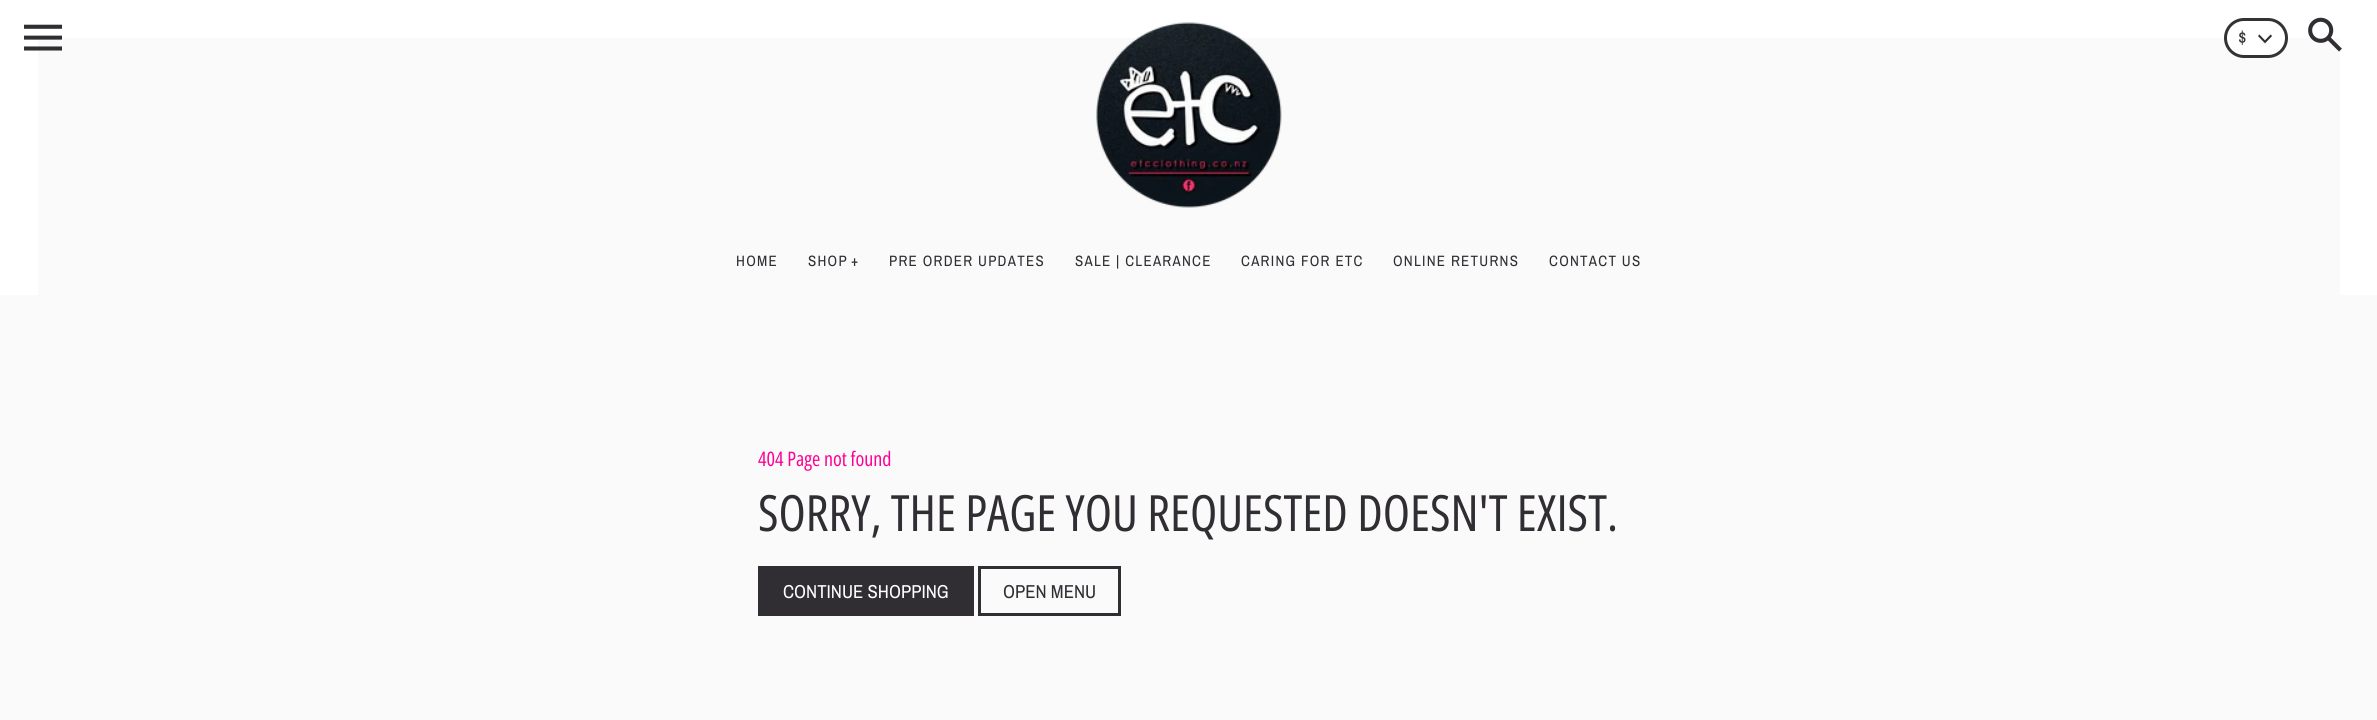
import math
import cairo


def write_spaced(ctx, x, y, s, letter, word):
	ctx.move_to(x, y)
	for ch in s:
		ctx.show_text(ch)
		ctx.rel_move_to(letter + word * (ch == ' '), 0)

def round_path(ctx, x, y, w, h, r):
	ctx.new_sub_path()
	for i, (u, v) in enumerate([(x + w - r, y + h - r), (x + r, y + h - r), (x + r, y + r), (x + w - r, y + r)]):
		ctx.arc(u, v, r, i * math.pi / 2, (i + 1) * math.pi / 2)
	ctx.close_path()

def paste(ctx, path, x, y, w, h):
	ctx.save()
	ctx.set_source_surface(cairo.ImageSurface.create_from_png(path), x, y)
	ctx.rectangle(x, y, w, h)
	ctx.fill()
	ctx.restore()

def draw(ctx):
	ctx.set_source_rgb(1, 1, 1)
	ctx.paint()
	ctx.set_source_rgb(0.98, 0.98, 0.98)
	ctx.rectangle(38, 38, 2302, 257)
	ctx.fill()
	ctx.select_font_face('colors')
	ctx.set_font_size(38)
	ctx.set_source_rgb(0.188, 0.176, 0.2)
	ctx.move_to(24, 59)
	ctx.show_text('1')
	paste(ctx, 'media/1.png', 1096, 22, 186, 186)
	ctx.set_source_rgb(1, 1, 1)
	round_path(ctx, 2225.5, 19.5, 61, 37, 18.5)
	ctx.fill_preserve()
	ctx.set_source_rgb(0.2, 0.2, 0.2)
	ctx.set_line_width(3)
	ctx.stroke()
	ctx.select_font_face('Archivo Narrow')
	ctx.set_font_size(18.75)
	ctx.move_to(2238, 44)
	ctx.show_text('$')
	paste(ctx, 'media/2.png', 2258, 34, 14, 10)
	ctx.select_font_face('colors')
	ctx.set_font_size(38)
	ctx.set_source_rgb(0.188, 0.176, 0.2)
	ctx.move_to(2306, 56)
	ctx.show_text('2')
	ctx.select_font_face('Archivo Narrow')
	ctx.set_font_size(15)
	for x, y, s in [
		(736, 266, 'HOME'),
		(808, 266, 'SHOP'),
		(851, 266, '+'),
		(889, 266, 'PRE ORDER UPDATES'),
		(1075, 266, 'SALE | CLEARANCE'),
		(1241, 266, 'CARING FOR ETC'),
		(1393, 266, 'ONLINE RETURNS'),
		(1549, 266, 'CONTACT US'),
	]:
		write_spaced(ctx, x, y, s, 1.25, 0)
	ctx.set_source_rgb(0.98, 0.98, 0.98)
	ctx.rectangle(0, 295, 2377, 425)
	ctx.fill()
	ctx.select_font_face('Open Sans Condensed')
	ctx.set_font_size(20)
	ctx.set_source_rgb(1, 0, 0.58)
	ctx.move_to(758, 466)
	ctx.show_text('404 Page not found')
	ctx.set_font_size(50)
	ctx.set_source_rgb(0.188, 0.176, 0.2)
	ctx.move_to(758, 531)
	ctx.show_text('SORRY, THE PAGE YOU REQUESTED DOESN\'T EXIST.')
	ctx.rectangle(758, 566, 216, 50)
	ctx.fill()
	ctx.select_font_face('Archivo Narrow')
	ctx.set_font_size(18.75)
	ctx.set_source_rgb(1, 1, 1)
	ctx.move_to(783, 598)
	ctx.show_text('CONTINUE SHOPPING')
	ctx.rectangle(979.5, 567.5, 140, 47)
	ctx.set_source_rgb(0.188, 0.176, 0.2)
	ctx.stroke()
	ctx.move_to(1003, 598)
	ctx.show_text('OPEN MENU')


surface = cairo.ImageSurface(cairo.FORMAT_RGB24, 2377, 720)
ctx = cairo.Context(surface)
options = cairo.FontOptions()
options.set_hint_metrics(cairo.HINT_METRICS_OFF)
options.set_hint_style(cairo.HINT_STYLE_NONE)
ctx.set_font_options(options)
ctx.set_miter_limit(4)
draw(ctx)
surface.write_to_png('image.png')
